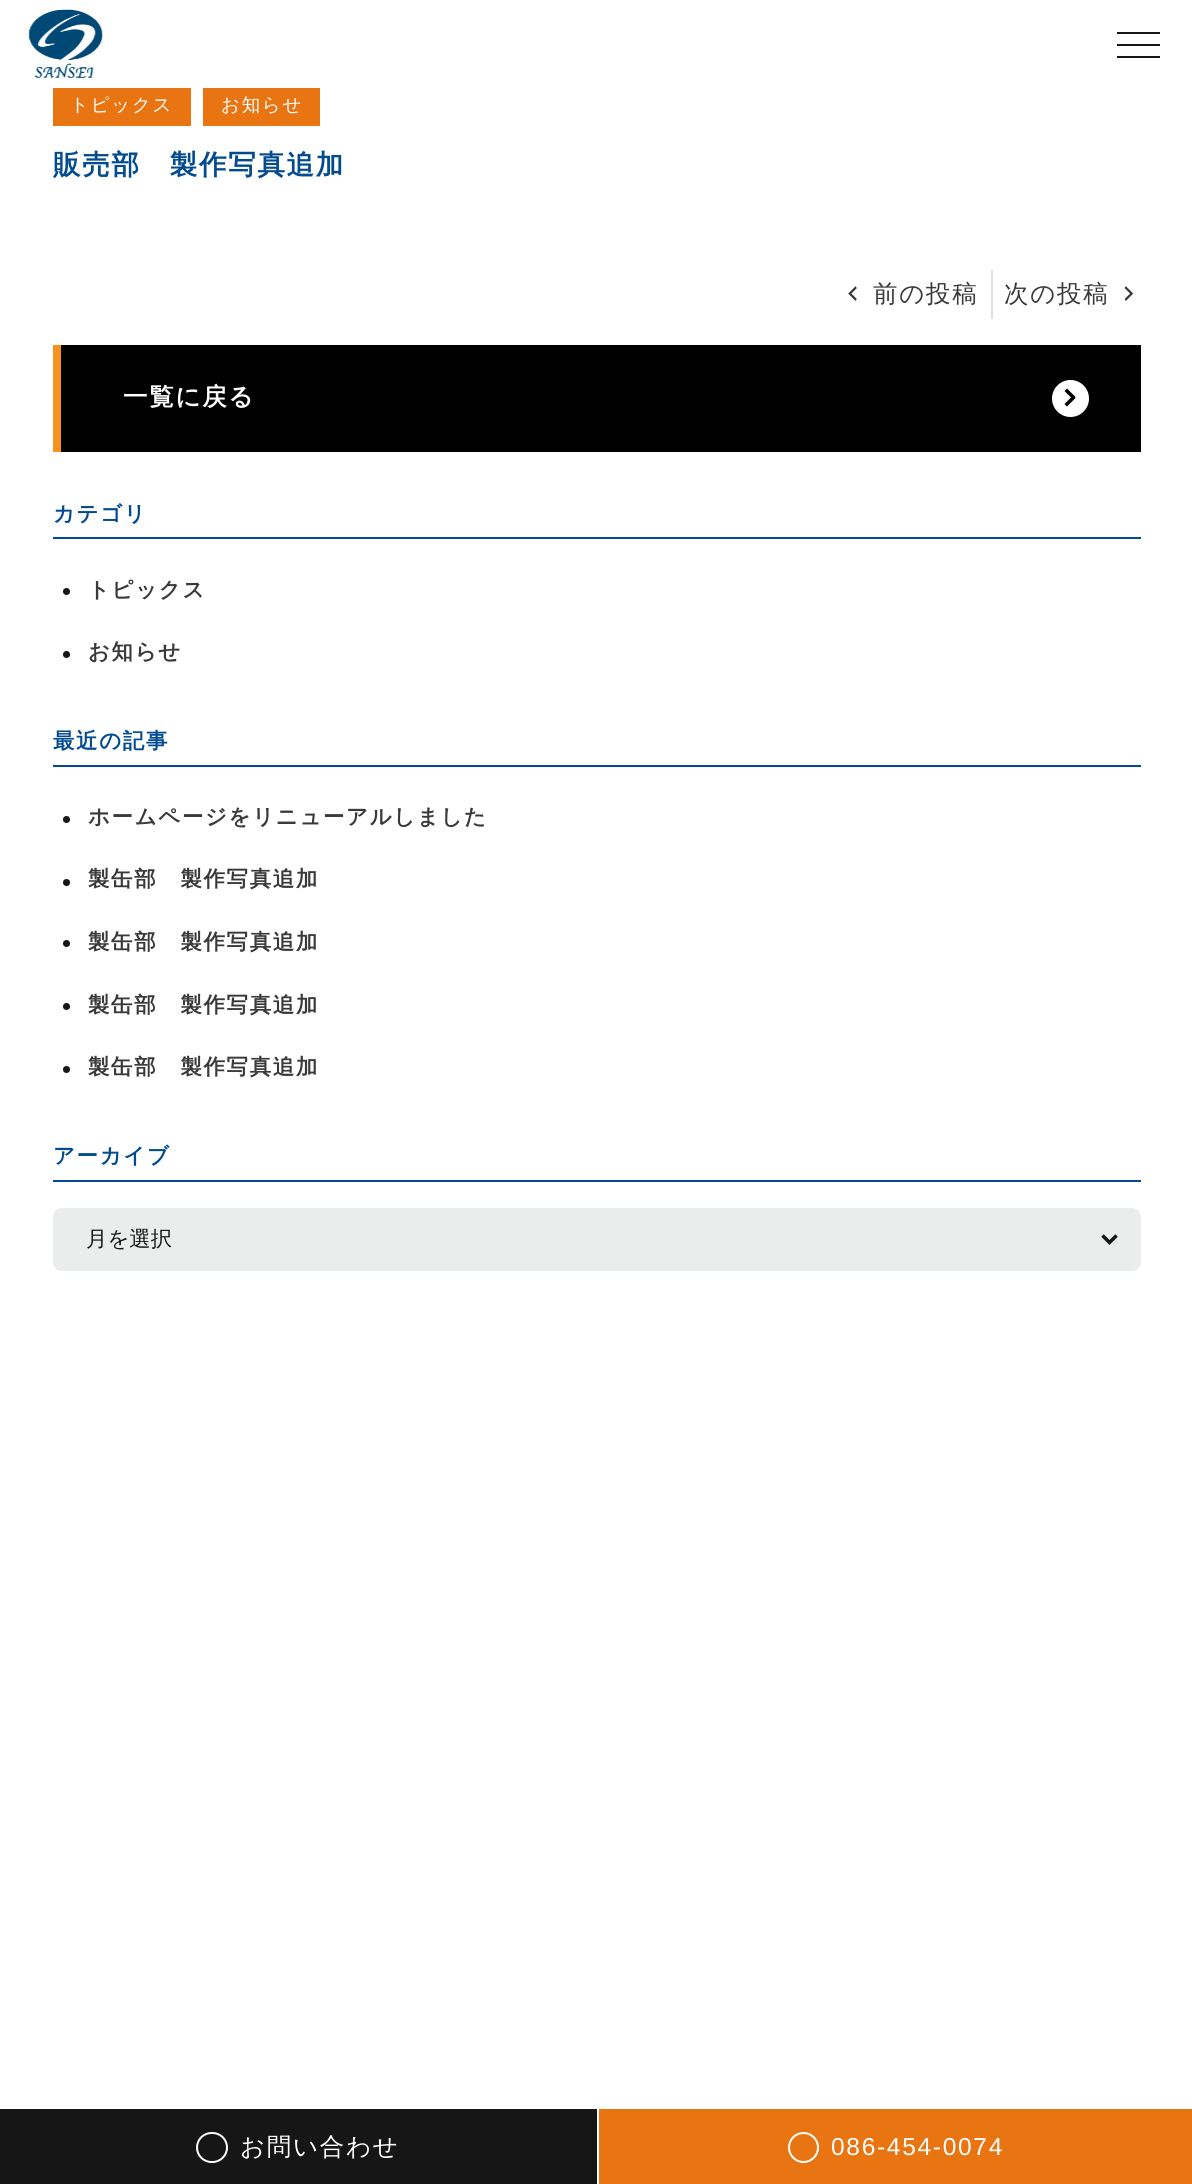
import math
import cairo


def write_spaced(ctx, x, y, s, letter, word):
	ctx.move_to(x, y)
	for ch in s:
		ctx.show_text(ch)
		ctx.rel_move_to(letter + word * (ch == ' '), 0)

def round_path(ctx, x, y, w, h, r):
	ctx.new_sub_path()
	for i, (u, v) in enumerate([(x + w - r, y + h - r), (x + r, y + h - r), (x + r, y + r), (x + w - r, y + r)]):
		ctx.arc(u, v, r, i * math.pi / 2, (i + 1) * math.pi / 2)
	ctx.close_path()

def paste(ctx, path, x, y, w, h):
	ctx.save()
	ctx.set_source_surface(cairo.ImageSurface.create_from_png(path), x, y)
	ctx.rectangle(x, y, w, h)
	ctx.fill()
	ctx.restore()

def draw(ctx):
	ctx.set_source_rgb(1, 1, 1)
	ctx.paint()
	paste(ctx, 'media/1.png', 28, 9, 75, 69)
	ctx.set_source_rgb(0.086, 0.086, 0.086)
	ctx.rectangle(1117, 32, 43, 2)
	ctx.rectangle(1117, 56, 43, 2)
	ctx.rectangle(1117, 44, 43, 2)
	ctx.fill()
	ctx.set_source_rgb(0.914, 0.459, 0.071)
	ctx.rectangle(53, 88, 138, 38)
	ctx.fill()
	ctx.select_font_face('WenQuanYi Zen Hei Medium')
	ctx.set_font_size(18.5)
	ctx.set_source_rgb(1, 1, 1)
	write_spaced(ctx, 70, 111, 'トピックス', 1.7, 0)
	ctx.set_source_rgb(0.914, 0.459, 0.071)
	ctx.rectangle(203, 88, 117, 38)
	ctx.fill()
	ctx.set_source_rgb(1, 1, 1)
	write_spaced(ctx, 221, 111, 'お知らせ', 1.7, 0)
	ctx.select_font_face('WenQuanYi Zen Hei', cairo.FONT_SLANT_NORMAL, cairo.FONT_WEIGHT_BOLD)
	ctx.set_font_size(27.5)
	ctx.set_source_rgb(0.008, 0.294, 0.565)
	write_spaced(ctx, 53, 174, '販売部　製作写真追加', 1.7, 0)
	paste(ctx, 'media/2.png', 848, 286, 9, 15)
	ctx.select_font_face('WenQuanYi Zen Hei Medium')
	ctx.set_font_size(24.5)
	ctx.set_source_rgb(0.224, 0.224, 0.224)
	write_spaced(ctx, 873, 302, '前の投稿', 1.7, 0)
	ctx.set_source_rgb(0.863, 0.882, 0.906)
	ctx.rectangle(991, 270, 2, 49)
	ctx.fill()
	ctx.set_source_rgb(0.224, 0.224, 0.224)
	write_spaced(ctx, 1004, 302, '次の投稿', 1.7, 0)
	paste(ctx, 'media/3.png', 1124, 286, 10, 15)
	ctx.set_source_rgb(0, 0, 0)
	ctx.rectangle(61, 345, 1080, 107)
	ctx.fill()
	ctx.set_source_rgb(0.965, 0.573, 0.118)
	ctx.rectangle(53, 345, 8, 107)
	ctx.fill()
	ctx.select_font_face('WenQuanYi Zen Hei', cairo.FONT_SLANT_NORMAL, cairo.FONT_WEIGHT_BOLD)
	ctx.set_source_rgb(1, 1, 1)
	write_spaced(ctx, 123, 405, '一覧に戻る', 1.7, 0)
	ctx.new_path()
	ctx.arc(1070.5, 398.5, 18.5, 0, 2 * math.pi)
	ctx.fill()
	ctx.set_source_rgb(0, 0, 0)
	ctx.new_path()
	ctx.move_to(1064.5, 391)
	ctx.line_to(1067, 388.5)
	ctx.line_to(1075.5, 397)
	ctx.line_to(1073, 399.5)
	ctx.close_path()
	ctx.fill()
	ctx.new_path()
	ctx.move_to(1073, 395.5)
	ctx.line_to(1075.5, 398)
	ctx.line_to(1067, 406.5)
	ctx.line_to(1064.5, 404)
	ctx.close_path()
	ctx.fill()
	ctx.set_source_rgb(0.008, 0.294, 0.565)
	ctx.rectangle(53, 537, 1088, 2)
	ctx.fill()
	ctx.set_font_size(21.4)
	write_spaced(ctx, 53, 521, 'カテゴリ', 1.7, 0)
	ctx.set_source_rgb(0.086, 0.086, 0.086)
	ctx.new_path()
	ctx.arc(66.5, 591.5, 3.5, 0, 2 * math.pi)
	ctx.fill()
	ctx.set_source_rgb(0.224, 0.224, 0.224)
	write_spaced(ctx, 88, 597, 'トピックス', 1.7, 0)
	ctx.set_source_rgb(0.086, 0.086, 0.086)
	ctx.new_path()
	ctx.arc(66.5, 654.5, 3.5, 0, 2 * math.pi)
	ctx.fill()
	ctx.set_source_rgb(0.224, 0.224, 0.224)
	write_spaced(ctx, 88, 659, 'お知らせ', 1.7, 0)
	ctx.set_source_rgb(0.008, 0.294, 0.565)
	ctx.rectangle(53, 765, 1088, 2)
	ctx.fill()
	write_spaced(ctx, 53, 748, '最近の記事', 1.7, 0)
	ctx.set_source_rgb(0.086, 0.086, 0.086)
	ctx.new_path()
	ctx.arc(66.5, 819.5, 3.5, 0, 2 * math.pi)
	ctx.fill()
	ctx.set_source_rgb(0.224, 0.224, 0.224)
	write_spaced(ctx, 88, 824, 'ホームページをリニューアルしました', 1.7, 0)
	ctx.set_source_rgb(0.086, 0.086, 0.086)
	ctx.new_path()
	ctx.arc(66.5, 882.5, 3.5, 0, 2 * math.pi)
	ctx.fill()
	ctx.set_source_rgb(0.224, 0.224, 0.224)
	write_spaced(ctx, 88, 886, '製缶部　製作写真追加', 1.7, 0)
	ctx.set_source_rgb(0.086, 0.086, 0.086)
	ctx.new_path()
	ctx.arc(66.5, 943.5, 3.5, 0, 2 * math.pi)
	ctx.fill()
	ctx.set_source_rgb(0.224, 0.224, 0.224)
	write_spaced(ctx, 88, 949, '製缶部　製作写真追加', 1.7, 0)
	ctx.set_source_rgb(0.086, 0.086, 0.086)
	ctx.new_path()
	ctx.arc(66.5, 1006.5, 3.5, 0, 2 * math.pi)
	ctx.fill()
	ctx.set_source_rgb(0.224, 0.224, 0.224)
	write_spaced(ctx, 88, 1012, '製缶部　製作写真追加', 1.7, 0)
	ctx.set_source_rgb(0.086, 0.086, 0.086)
	ctx.new_path()
	ctx.arc(66.5, 1069.5, 3.5, 0, 2 * math.pi)
	ctx.fill()
	ctx.set_source_rgb(0.224, 0.224, 0.224)
	write_spaced(ctx, 88, 1074, '製缶部　製作写真追加', 1.7, 0)
	ctx.set_source_rgb(0.008, 0.294, 0.565)
	ctx.rectangle(53, 1180, 1088, 2)
	ctx.fill()
	write_spaced(ctx, 53, 1163, 'アーカイブ', 1.7, 0)
	ctx.set_source_rgb(0.918, 0.922, 0.925)
	round_path(ctx, 53, 1208, 1088, 63, 9)
	ctx.fill()
	ctx.new_path()
	ctx.move_to(1102.5, 1235.5)
	ctx.line_to(1109.5, 1242.5)
	ctx.line_to(1116.5, 1235.5)
	ctx.set_source_rgb(0.086, 0.086, 0.086)
	ctx.set_line_width(3.5)
	ctx.stroke()
	ctx.select_font_face('WenQuanYi Zen Hei Medium')
	ctx.move_to(86, 1246)
	ctx.show_text('月を選択')
	ctx.rectangle(0, 2109, 597, 75)
	ctx.fill()
	round_path(ctx, 197, 2133, 30, 29, 14.5)
	ctx.set_source_rgb(1, 1, 1)
	ctx.set_line_width(2)
	ctx.stroke()
	ctx.set_font_size(24.5)
	write_spaced(ctx, 240, 2155, 'お問い合わせ', 1.7, 0)
	ctx.set_source_rgb(0.914, 0.459, 0.071)
	ctx.rectangle(599, 2109, 593, 75)
	ctx.fill()
	ctx.arc(803.5, 2147.5, 14.5, 0, 2 * math.pi)
	ctx.set_source_rgb(1, 1, 1)
	ctx.stroke()
	ctx.select_font_face('Liberation Sans')
	write_spaced(ctx, 831, 2155, '086-454-0074', 1.7, 0)


surface = cairo.ImageSurface(cairo.FORMAT_RGB24, 1192, 2184)
ctx = cairo.Context(surface)
options = cairo.FontOptions()
options.set_hint_metrics(cairo.HINT_METRICS_OFF)
options.set_hint_style(cairo.HINT_STYLE_NONE)
ctx.set_font_options(options)
ctx.set_miter_limit(4)
draw(ctx)
surface.write_to_png('image.png')
